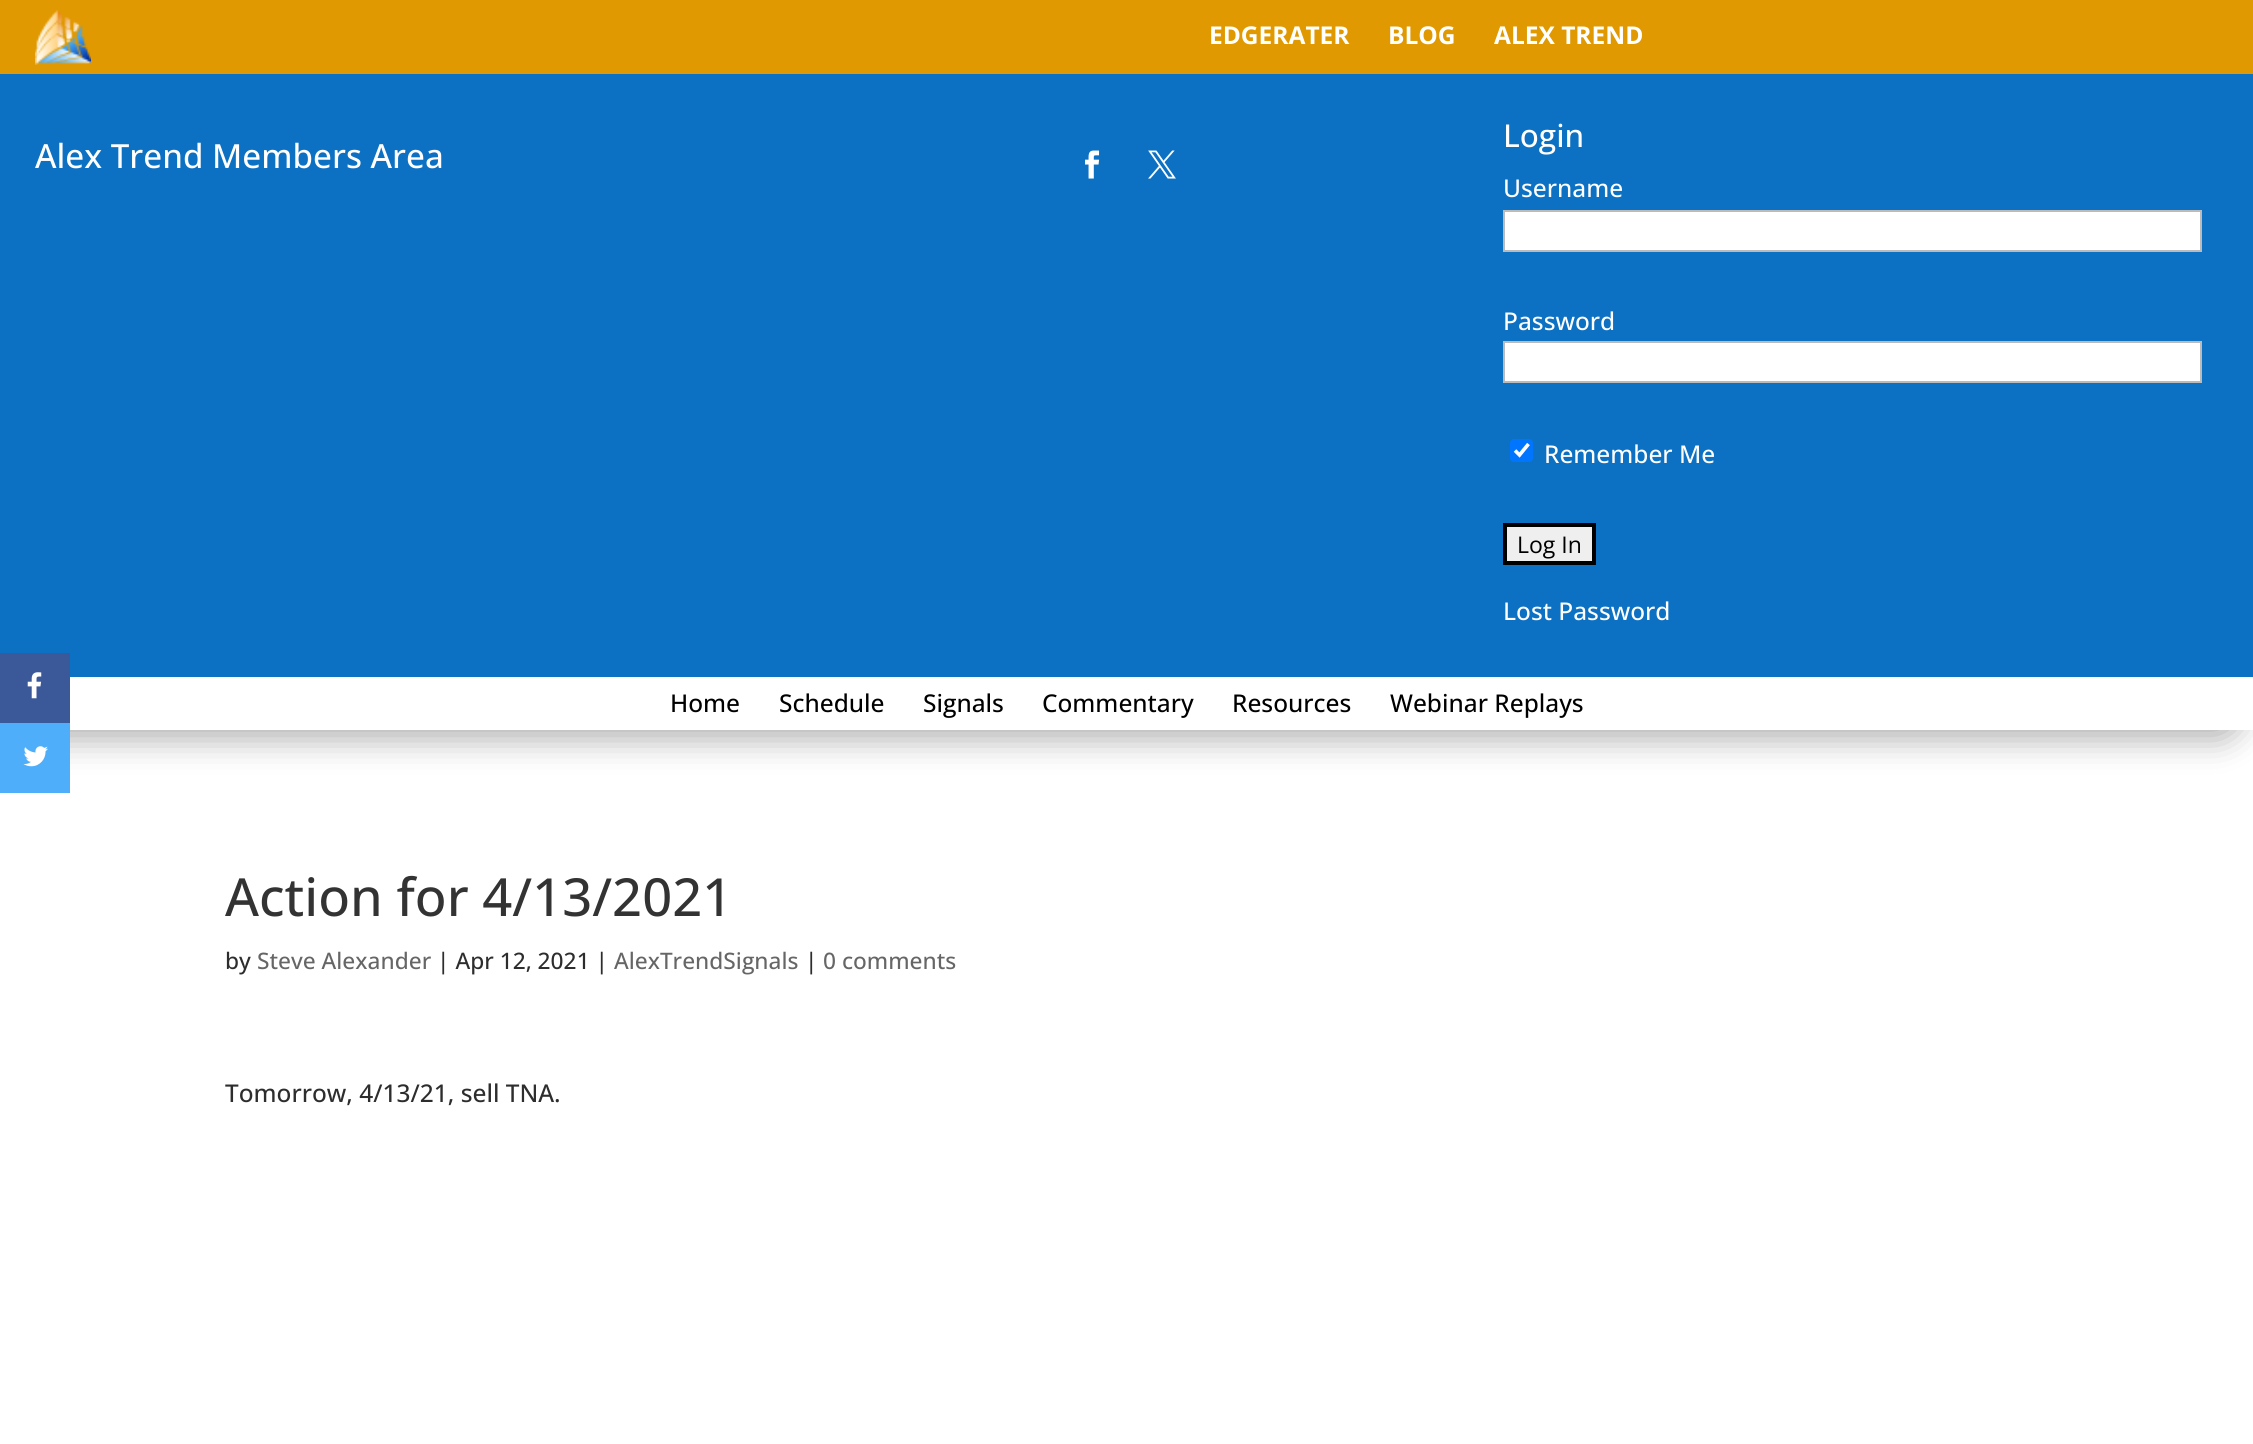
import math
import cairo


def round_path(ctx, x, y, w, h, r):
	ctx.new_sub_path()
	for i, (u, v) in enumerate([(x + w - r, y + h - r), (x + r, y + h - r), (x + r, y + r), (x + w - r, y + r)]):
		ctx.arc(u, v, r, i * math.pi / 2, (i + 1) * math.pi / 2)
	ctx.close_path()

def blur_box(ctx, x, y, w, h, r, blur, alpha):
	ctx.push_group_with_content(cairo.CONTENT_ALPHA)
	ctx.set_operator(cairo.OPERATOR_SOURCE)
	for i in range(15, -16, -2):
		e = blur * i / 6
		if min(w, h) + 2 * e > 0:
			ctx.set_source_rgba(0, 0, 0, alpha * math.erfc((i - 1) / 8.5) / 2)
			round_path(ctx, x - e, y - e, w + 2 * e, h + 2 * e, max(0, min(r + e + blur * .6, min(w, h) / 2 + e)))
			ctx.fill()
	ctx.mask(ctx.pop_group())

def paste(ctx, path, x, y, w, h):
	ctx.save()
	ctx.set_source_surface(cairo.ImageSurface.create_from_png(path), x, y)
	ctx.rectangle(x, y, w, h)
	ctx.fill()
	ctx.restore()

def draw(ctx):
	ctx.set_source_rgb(1, 1, 1)
	ctx.paint()
	ctx.set_source_rgb(0, 0, 0)
	blur_box(ctx, 11, 32, 2233, 708, 25, 16, 0.3)
	ctx.set_source_rgb(0.878, 0.6, 0)
	ctx.rectangle(0, 0, 2253, 74)
	ctx.fill()
	paste(ctx, 'media/1.png', 35, 10, 56, 55)
	ctx.select_font_face('Open Sans', cairo.FONT_SLANT_NORMAL, cairo.FONT_WEIGHT_BOLD)
	ctx.set_font_size(24.5)
	ctx.set_source_rgb(1, 1, 1)
	for x, y, s in [
		(1209, 44, 'EDGERATER'),
		(1388, 44, 'BLOG'),
		(1494, 44, 'ALEX TREND'),
	]:
		ctx.move_to(x, y)
		ctx.show_text(s)
	ctx.set_source_rgb(0.047, 0.443, 0.765)
	ctx.rectangle(0, 74, 2253, 603)
	ctx.fill()
	ctx.select_font_face('Open Sans Medium')
	ctx.set_font_size(33.25)
	ctx.set_source_rgb(1, 1, 1)
	ctx.move_to(35, 168)
	ctx.show_text('Alex Trend Members Area')
	paste(ctx, 'media/2.png', 1085, 150, 15, 29)
	paste(ctx, 'media/3.png', 1148, 150, 28, 29)
	ctx.set_font_size(31.5)
	ctx.move_to(1503, 147)
	ctx.show_text('Login')
	ctx.set_font_size(24.5)
	ctx.move_to(1503, 197)
	ctx.show_text('Username')
	ctx.rectangle(1504, 211, 697, 40)
	ctx.fill_preserve()
	ctx.set_source_rgb(0.733, 0.733, 0.733)
	ctx.stroke()
	ctx.set_source_rgb(1, 1, 1)
	ctx.move_to(1503, 330)
	ctx.show_text('Password')
	ctx.rectangle(1504, 342, 697, 40)
	ctx.fill_preserve()
	ctx.set_source_rgb(0.733, 0.733, 0.733)
	ctx.stroke()
	ctx.set_source_rgb(0, 0.459, 1)
	round_path(ctx, 1510, 439, 23, 23, 4)
	ctx.fill()
	ctx.new_path()
	ctx.move_to(1515, 450.5)
	ctx.line_to(1519.5, 455)
	ctx.line_to(1528.5, 444)
	ctx.set_source_rgb(1, 1, 1)
	ctx.set_line_width(3.6)
	ctx.stroke()
	ctx.move_to(1544, 463)
	ctx.show_text('Remember Me')
	ctx.set_source_rgb(0.937, 0.937, 0.937)
	ctx.rectangle(1505, 525, 89, 38)
	ctx.fill_preserve()
	ctx.set_source_rgb(0, 0, 0)
	ctx.set_line_width(4)
	ctx.stroke()
	ctx.select_font_face('Open Sans')
	ctx.set_font_size(23)
	ctx.move_to(1517, 553)
	ctx.show_text('Log In')
	ctx.select_font_face('Open Sans Medium')
	ctx.set_font_size(24.5)
	ctx.set_source_rgb(1, 1, 1)
	ctx.move_to(1503, 620)
	ctx.show_text('Lost Password')
	ctx.rectangle(70, 677, 2183, 53)
	ctx.fill()
	ctx.set_source_rgb(0, 0, 0)
	for x, y, s in [
		(670, 712, 'Home'),
		(779, 712, 'Schedule'),
		(923, 712, 'Signals'),
		(1042, 712, 'Commentary'),
		(1232, 712, 'Resources'),
		(1390, 712, 'Webinar Replays'),
	]:
		ctx.move_to(x, y)
		ctx.show_text(s)
	ctx.set_font_size(52.5)
	ctx.set_source_rgb(0.2, 0.2, 0.2)
	ctx.move_to(225, 916)
	ctx.show_text('Action for 4/13/2021')
	ctx.set_font_size(22.75)
	ctx.set_source_rgb(0.176, 0.176, 0.176)
	ctx.move_to(225, 969)
	ctx.show_text('by')
	ctx.set_source_rgb(0.4, 0.4, 0.4)
	ctx.move_to(257, 969)
	ctx.show_text('Steve Alexander')
	ctx.set_source_rgb(0.176, 0.176, 0.176)
	ctx.move_to(437, 969)
	ctx.show_text('| Apr 12, 2021 |')
	ctx.set_source_rgb(0.4, 0.4, 0.4)
	ctx.move_to(614, 969)
	ctx.show_text('AlexTrendSignals')
	ctx.set_source_rgb(0.176, 0.176, 0.176)
	ctx.move_to(805, 969)
	ctx.show_text('|')
	ctx.set_source_rgb(0.4, 0.4, 0.4)
	ctx.move_to(823, 969)
	ctx.show_text('0 comments')
	ctx.set_font_size(24.5)
	ctx.set_source_rgb(0.176, 0.176, 0.176)
	ctx.move_to(225, 1102)
	ctx.show_text('Tomorrow, 4/13/21, sell TNA.')
	ctx.set_source_rgb(0.231, 0.349, 0.596)
	ctx.rectangle(0, 653, 70, 70)
	ctx.fill()
	paste(ctx, 'media/4.png', 27, 672, 15, 27)
	ctx.set_source_rgb(0.306, 0.682, 0.973)
	ctx.rectangle(0, 723, 70, 70)
	ctx.fill()
	paste(ctx, 'media/5.png', 23, 746, 25, 21)


surface = cairo.ImageSurface(cairo.FORMAT_RGB24, 2253, 1444)
ctx = cairo.Context(surface)
options = cairo.FontOptions()
options.set_hint_metrics(cairo.HINT_METRICS_OFF)
options.set_hint_style(cairo.HINT_STYLE_NONE)
ctx.set_font_options(options)
ctx.set_miter_limit(4)
draw(ctx)
surface.write_to_png('image.png')
